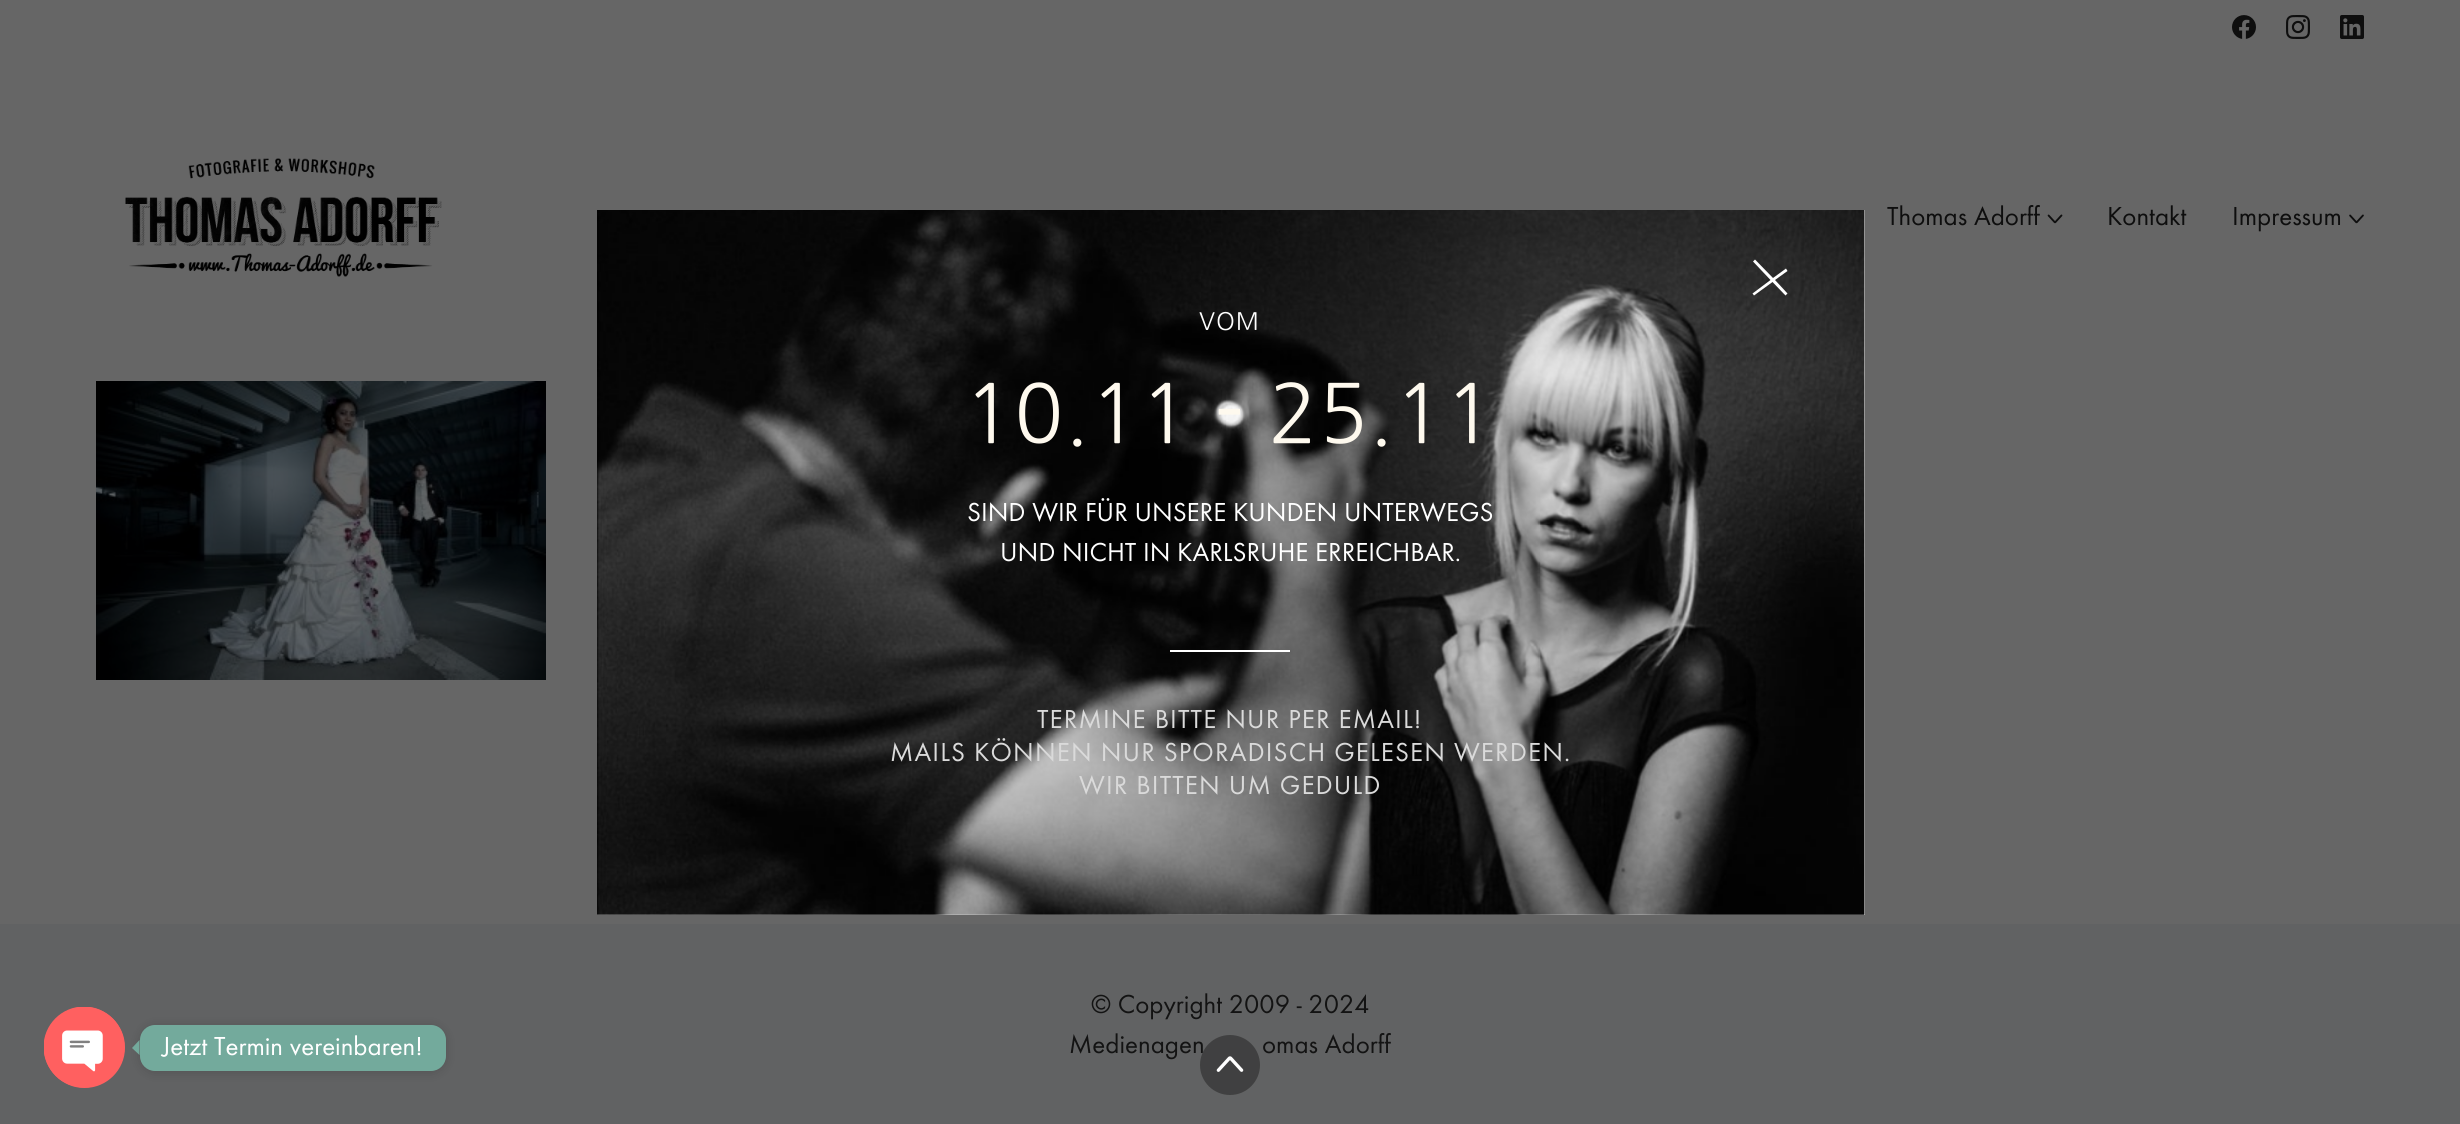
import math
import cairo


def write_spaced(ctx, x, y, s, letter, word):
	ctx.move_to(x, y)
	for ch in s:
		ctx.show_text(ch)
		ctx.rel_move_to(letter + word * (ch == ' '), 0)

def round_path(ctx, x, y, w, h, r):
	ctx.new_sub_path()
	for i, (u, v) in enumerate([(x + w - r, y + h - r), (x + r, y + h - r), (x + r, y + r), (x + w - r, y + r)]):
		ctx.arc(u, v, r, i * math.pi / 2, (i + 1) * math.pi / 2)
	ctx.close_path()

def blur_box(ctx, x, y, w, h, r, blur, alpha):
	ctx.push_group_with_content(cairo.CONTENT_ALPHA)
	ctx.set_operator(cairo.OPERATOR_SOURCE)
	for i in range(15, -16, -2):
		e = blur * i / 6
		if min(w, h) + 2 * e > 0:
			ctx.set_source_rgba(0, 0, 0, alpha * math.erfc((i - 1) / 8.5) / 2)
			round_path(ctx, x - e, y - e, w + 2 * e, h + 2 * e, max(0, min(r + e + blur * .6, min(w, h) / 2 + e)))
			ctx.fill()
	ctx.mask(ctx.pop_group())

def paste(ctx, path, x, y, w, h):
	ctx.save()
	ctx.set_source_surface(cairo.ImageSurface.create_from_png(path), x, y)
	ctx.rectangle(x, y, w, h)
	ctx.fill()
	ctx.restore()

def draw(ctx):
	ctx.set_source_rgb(0.4, 0.4, 0.4)
	ctx.paint()
	paste(ctx, 'media/1.png', 2232, 15, 24, 24)
	paste(ctx, 'media/2.png', 2286, 15, 24, 24)
	paste(ctx, 'media/3.png', 2340, 15, 24, 24)
	paste(ctx, 'media/4.png', 125, 158, 317, 119)
	ctx.select_font_face('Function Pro')
	ctx.set_font_size(27)
	ctx.set_source_rgb(0.055, 0.055, 0.055)
	ctx.move_to(1887, 225)
	ctx.show_text('Thomas Adorff')
	paste(ctx, 'media/5.png', 2047, 214, 16, 10)
	ctx.move_to(2107, 225)
	ctx.show_text('Kontakt')
	ctx.move_to(2232, 225)
	ctx.show_text('Impressum')
	paste(ctx, 'media/6.png', 2349, 214, 15, 10)
	paste(ctx, 'media/7.png', 96, 381, 450, 299)
	ctx.set_source_rgb(0.38, 0.384, 0.388)
	ctx.rectangle(0, 924, 2460, 200)
	ctx.fill()
	ctx.set_source_rgb(0.078, 0.078, 0.078)
	for x, y, s in [
		(1091, 1013, '© Copyright 2009 - 2024'),
		(1069, 1053, 'Medienagen'),
		(1262, 1053, 'omas Adorff'),
	]:
		ctx.move_to(x, y)
		ctx.show_text(s)
	ctx.set_source_rgb(1, 1, 1)
	ctx.rectangle(597, 210, 1268, 705)
	ctx.fill()
	paste(ctx, 'media/8.png', 597, 210, 1268, 705)
	ctx.new_path()
	ctx.move_to(1787.5, 293.5)
	ctx.line_to(1775, 280)
	ctx.line_to(1787.5, 271)
	ctx.line_to(1786, 268.5)
	ctx.line_to(1773, 278)
	ctx.line_to(1755, 259.5)
	ctx.line_to(1753, 261.5)
	ctx.line_to(1770.5, 280)
	ctx.line_to(1752.5, 293.5)
	ctx.line_to(1754, 295.5)
	ctx.line_to(1772.5, 282)
	ctx.line_to(1785.5, 295.5)
	ctx.close_path()
	ctx.fill()
	ctx.select_font_face('NanumGothic')
	ctx.set_font_size(24)
	write_spaced(ctx, 1199, 330, 'VOM', 1, 0)
	ctx.set_font_size(81)
	ctx.set_source_rgb(0.996, 0.973, 0.933)
	write_spaced(ctx, 964, 443, '10.11 - 25.11', 1.1, 0)
	ctx.select_font_face('Function Pro')
	ctx.set_font_size(27)
	ctx.set_source_rgb(1, 1, 1)
	ctx.move_to(967, 521)
	ctx.show_text('SIND WIR FÜR UNSERE KUNDEN UNTERWEGS')
	ctx.move_to(1000, 561)
	ctx.show_text('UND NICHT IN KARLSRUHE ERREICHBAR.')
	ctx.rectangle(1170, 650, 120, 2)
	ctx.fill()
	ctx.set_source_rgb(0.855, 0.855, 0.855)
	for x, y, s in [
		(1037, 728, 'TERMINE BITTE NUR PER EMAIL!'),
		(890, 761, 'MAILS KÖNNEN NUR SPORADISCH GELESEN WERDEN.'),
		(1079, 794, 'WIR BITTEN UM GEDULD'),
	]:
		write_spaced(ctx, x, y, s, 1.15, 0)
	ctx.set_source_rgb(0, 0, 0)
	blur_box(ctx, 140, 1026, 306, 47, 15, 6, 0.15)
	ctx.set_source_rgb(1, 0.376, 0.376)
	ctx.arc(84.5, 1047.5, 40.5, 0, 2 * math.pi)
	ctx.fill()
	paste(ctx, 'media/9.png', 44, 1007, 81, 81)
	ctx.set_source_rgb(0.451, 0.667, 0.612)
	round_path(ctx, 140, 1025, 306, 46, 15)
	ctx.fill()
	ctx.new_path()
	ctx.move_to(139.5, 1040)
	ctx.line_to(139.5, 1055)
	ctx.line_to(132, 1048)
	ctx.close_path()
	ctx.fill()
	ctx.set_source_rgb(1, 1, 1)
	ctx.move_to(162, 1055)
	ctx.show_text('Jetzt Termin vereinbaren!')
	ctx.set_source_rgba(0.2, 0.2, 0.2, 0.7)
	ctx.new_path()
	ctx.arc(1230, 1065, 30, 0, 2 * math.pi)
	ctx.fill()
	paste(ctx, 'media/10.png', 1216, 1056, 28, 16)


surface = cairo.ImageSurface(cairo.FORMAT_RGB24, 2460, 1124)
ctx = cairo.Context(surface)
options = cairo.FontOptions()
options.set_hint_metrics(cairo.HINT_METRICS_OFF)
options.set_hint_style(cairo.HINT_STYLE_NONE)
ctx.set_font_options(options)
ctx.set_miter_limit(4)
draw(ctx)
surface.write_to_png('image.png')
